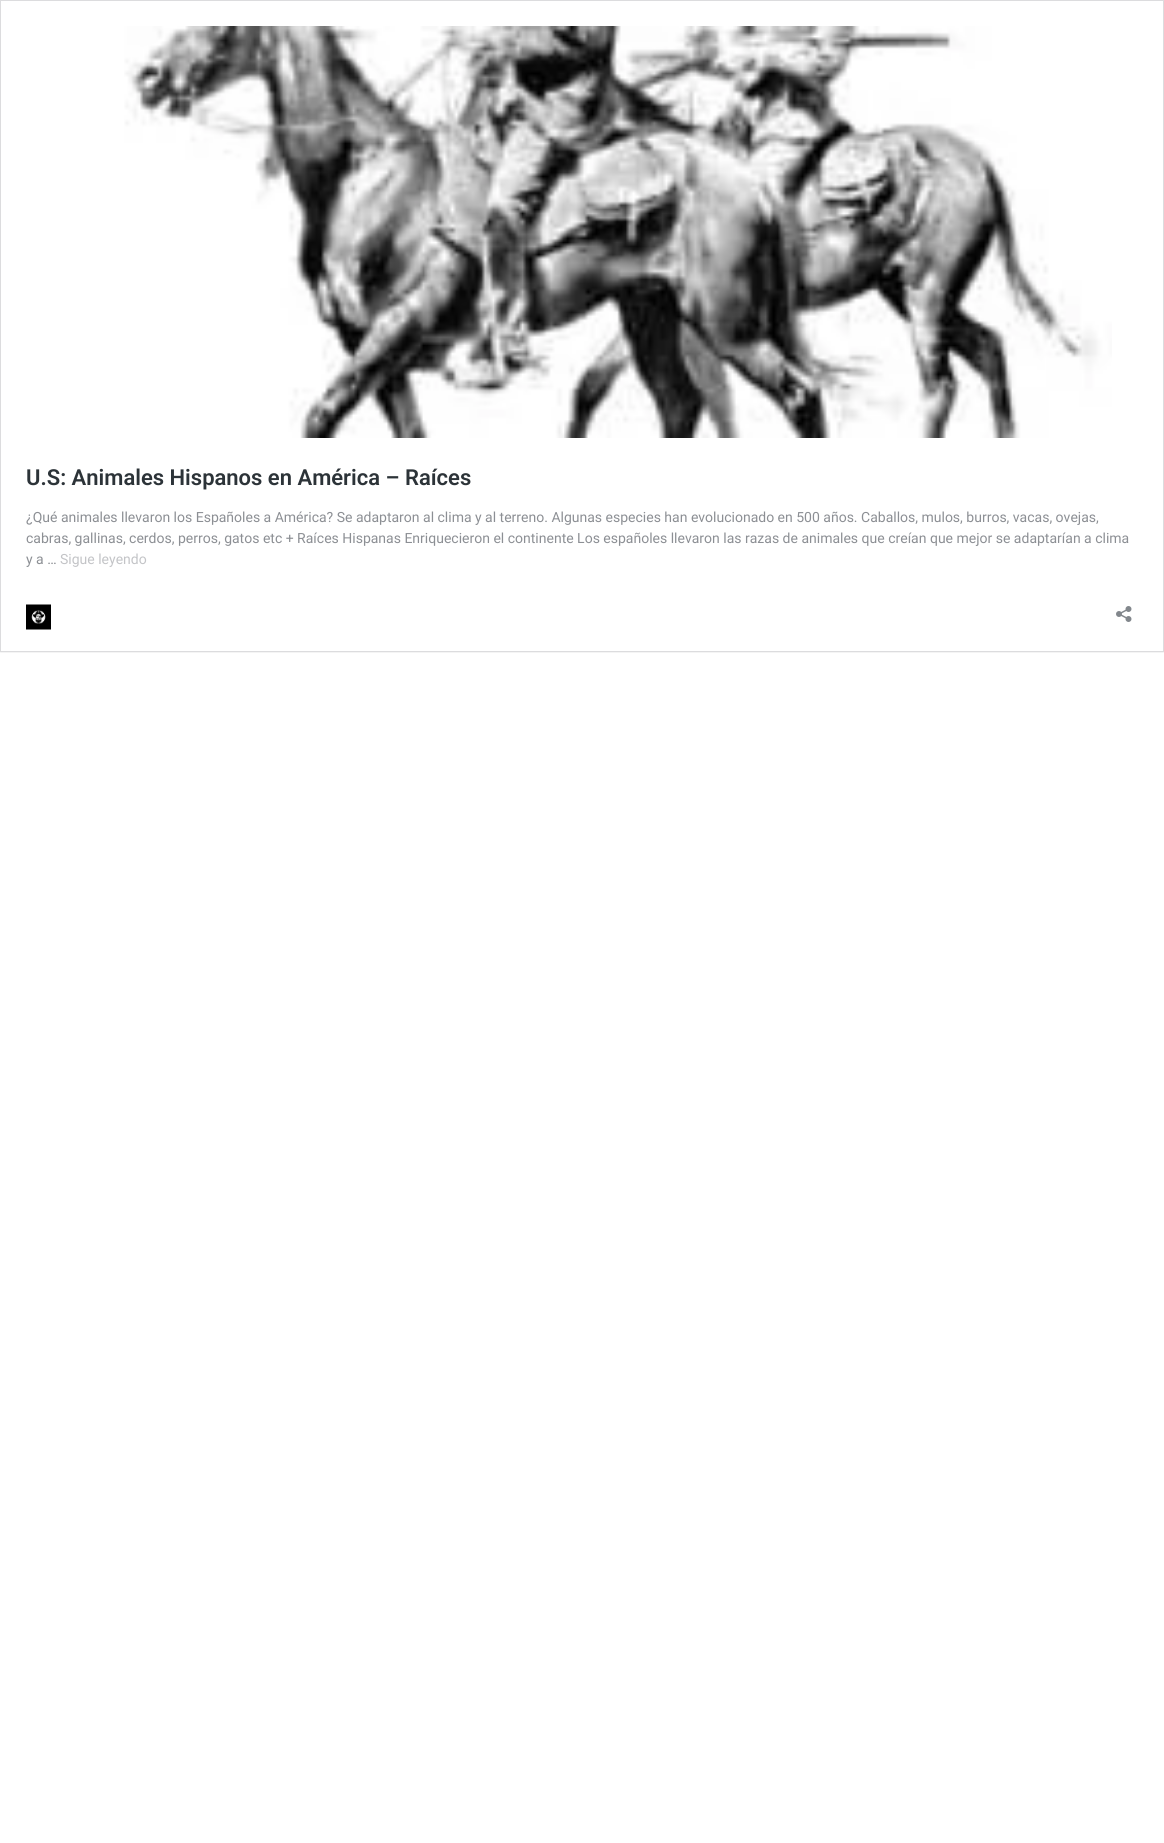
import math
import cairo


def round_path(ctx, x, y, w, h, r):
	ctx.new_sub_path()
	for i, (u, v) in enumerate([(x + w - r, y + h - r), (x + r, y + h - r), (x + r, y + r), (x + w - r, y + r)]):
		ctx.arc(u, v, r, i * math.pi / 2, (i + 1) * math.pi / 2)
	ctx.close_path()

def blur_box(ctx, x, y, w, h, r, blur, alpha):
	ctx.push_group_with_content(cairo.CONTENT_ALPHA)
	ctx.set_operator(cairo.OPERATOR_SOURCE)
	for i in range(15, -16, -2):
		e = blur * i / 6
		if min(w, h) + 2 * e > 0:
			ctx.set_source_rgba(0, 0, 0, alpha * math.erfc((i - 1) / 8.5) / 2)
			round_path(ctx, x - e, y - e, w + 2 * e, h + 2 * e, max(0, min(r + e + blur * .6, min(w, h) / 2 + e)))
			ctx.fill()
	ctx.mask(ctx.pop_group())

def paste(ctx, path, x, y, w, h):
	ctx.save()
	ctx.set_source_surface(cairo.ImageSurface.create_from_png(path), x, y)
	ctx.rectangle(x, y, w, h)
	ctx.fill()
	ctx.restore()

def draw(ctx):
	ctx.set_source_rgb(1, 1, 1)
	ctx.paint()
	ctx.save()
	ctx.rectangle(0, 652, 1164, 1)
	ctx.clip()
	ctx.set_source_rgb(0, 0, 0)
	blur_box(ctx, 0, 1, 1164, 652, 0, 0.5, 0.05)
	ctx.restore()
	ctx.rectangle(0.5, 0.5, 1163, 651)
	ctx.set_source_rgb(0.863, 0.863, 0.871)
	ctx.set_line_width(1)
	ctx.stroke()
	paste(ctx, 'media/1.png', 124, 26, 988, 412)
	ctx.select_font_face('Roboto SemiBold')
	ctx.set_font_size(22)
	ctx.set_source_rgb(0.173, 0.2, 0.22)
	ctx.move_to(26, 485)
	ctx.show_text('U.S: Animales Hispanos en América – Raíces')
	ctx.select_font_face('Roboto')
	ctx.set_font_size(14)
	ctx.set_source_rgb(0.549, 0.561, 0.58)
	for x, y, s in [
		(26, 522, '¿Qué animales llevaron los Españoles a América? Se adaptaron al clima y al terreno. Algunas especies han evolucionado en 500 años. Caballos, mulos, burros, vacas, ovejas,'),
		(26, 543, 'cabras, gallinas, cerdos, perros, gatos etc + Raíces Hispanas Enriquecieron el continente Los españoles llevaron las razas de animales que creían que mejor se adaptarían a clima'),
		(26, 564, 'y a …'),
	]:
		ctx.move_to(x, y)
		ctx.show_text(s)
	ctx.set_source_rgb(0.765, 0.769, 0.78)
	ctx.move_to(60, 564)
	ctx.show_text('Sigue leyendo')
	paste(ctx, 'media/2.png', 26, 604, 25, 26)
	paste(ctx, 'media/3.png', 1116, 606, 16, 16)


surface = cairo.ImageSurface(cairo.FORMAT_RGB24, 1164, 1843)
ctx = cairo.Context(surface)
options = cairo.FontOptions()
options.set_hint_metrics(cairo.HINT_METRICS_OFF)
options.set_hint_style(cairo.HINT_STYLE_NONE)
ctx.set_font_options(options)
ctx.set_miter_limit(4)
draw(ctx)
surface.write_to_png('image.png')
